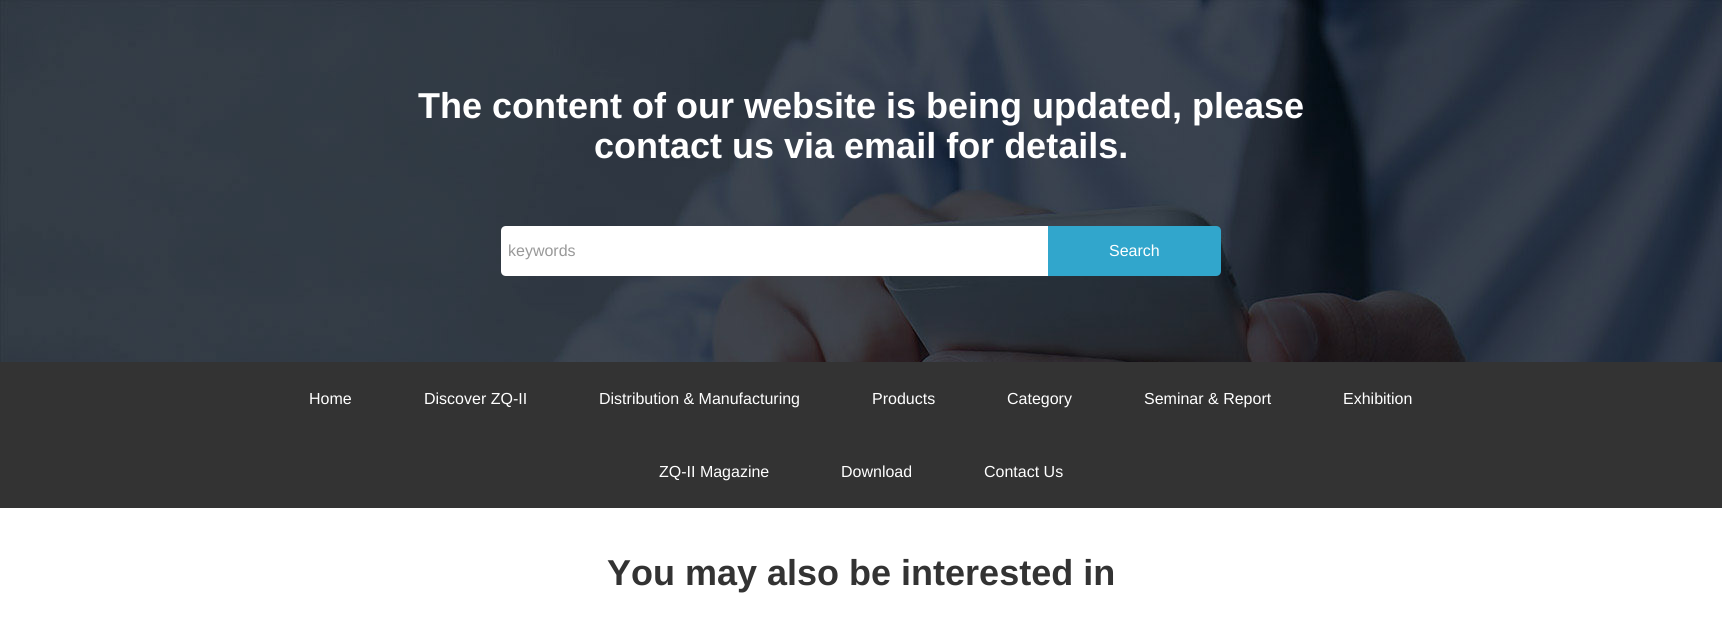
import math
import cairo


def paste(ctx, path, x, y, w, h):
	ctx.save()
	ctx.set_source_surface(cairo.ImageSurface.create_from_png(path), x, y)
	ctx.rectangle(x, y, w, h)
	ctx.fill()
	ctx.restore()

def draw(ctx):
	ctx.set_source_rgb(1, 1, 1)
	ctx.paint()
	paste(ctx, 'media/1.png', 0, 0, 1722, 362)
	ctx.select_font_face('Liberation Sans', cairo.FONT_SLANT_NORMAL, cairo.FONT_WEIGHT_BOLD)
	ctx.set_font_size(36)
	ctx.set_source_rgb(1, 1, 1)
	ctx.move_to(418, 118)
	ctx.show_text('The content of our website is being updated, please')
	ctx.move_to(594, 158)
	ctx.show_text('contact us via email for details.')
	ctx.new_path()
	ctx.move_to(506, 226)
	ctx.line_to(1048, 226)
	ctx.line_to(1048, 276)
	ctx.line_to(506, 276)
	ctx.curve_to(503, 276, 501, 274, 501, 271)
	ctx.line_to(501, 231)
	ctx.curve_to(501, 228, 503, 226, 506, 226)
	ctx.close_path()
	ctx.fill()
	ctx.select_font_face('Liberation Sans')
	ctx.set_font_size(16)
	ctx.set_source_rgb(0.6, 0.6, 0.6)
	ctx.move_to(508, 256)
	ctx.show_text('keywords')
	ctx.set_source_rgb(0.192, 0.651, 0.8)
	ctx.new_path()
	ctx.move_to(1048, 226)
	ctx.line_to(1216, 226)
	ctx.curve_to(1219, 226, 1221, 228, 1221, 231)
	ctx.line_to(1221, 271)
	ctx.curve_to(1221, 274, 1219, 276, 1216, 276)
	ctx.line_to(1048, 276)
	ctx.close_path()
	ctx.fill()
	ctx.set_source_rgb(1, 1, 1)
	ctx.move_to(1109, 256)
	ctx.show_text('Search')
	ctx.set_source_rgb(0.2, 0.2, 0.2)
	ctx.rectangle(0, 362, 1722, 146)
	ctx.fill()
	ctx.set_source_rgb(1, 1, 1)
	for x, y, s in [
		(309, 404, 'Home'),
		(424, 404, 'Discover ZQ-II'),
		(599, 404, 'Distribution & Manufacturing'),
		(872, 404, 'Products'),
		(1007, 404, 'Category'),
		(1144, 404, 'Seminar & Report'),
		(1343, 404, 'Exhibition'),
		(659, 477, 'ZQ-II Magazine'),
		(841, 477, 'Download'),
		(984, 477, 'Contact Us'),
	]:
		ctx.move_to(x, y)
		ctx.show_text(s)
	ctx.select_font_face('Liberation Sans', cairo.FONT_SLANT_NORMAL, cairo.FONT_WEIGHT_BOLD)
	ctx.set_font_size(36)
	ctx.set_source_rgb(0.2, 0.2, 0.2)
	ctx.move_to(607, 585)
	ctx.show_text('You may also be interested in')


surface = cairo.ImageSurface(cairo.FORMAT_RGB24, 1722, 625)
ctx = cairo.Context(surface)
options = cairo.FontOptions()
options.set_hint_metrics(cairo.HINT_METRICS_OFF)
options.set_hint_style(cairo.HINT_STYLE_NONE)
ctx.set_font_options(options)
ctx.set_miter_limit(4)
draw(ctx)
surface.write_to_png('image.png')
